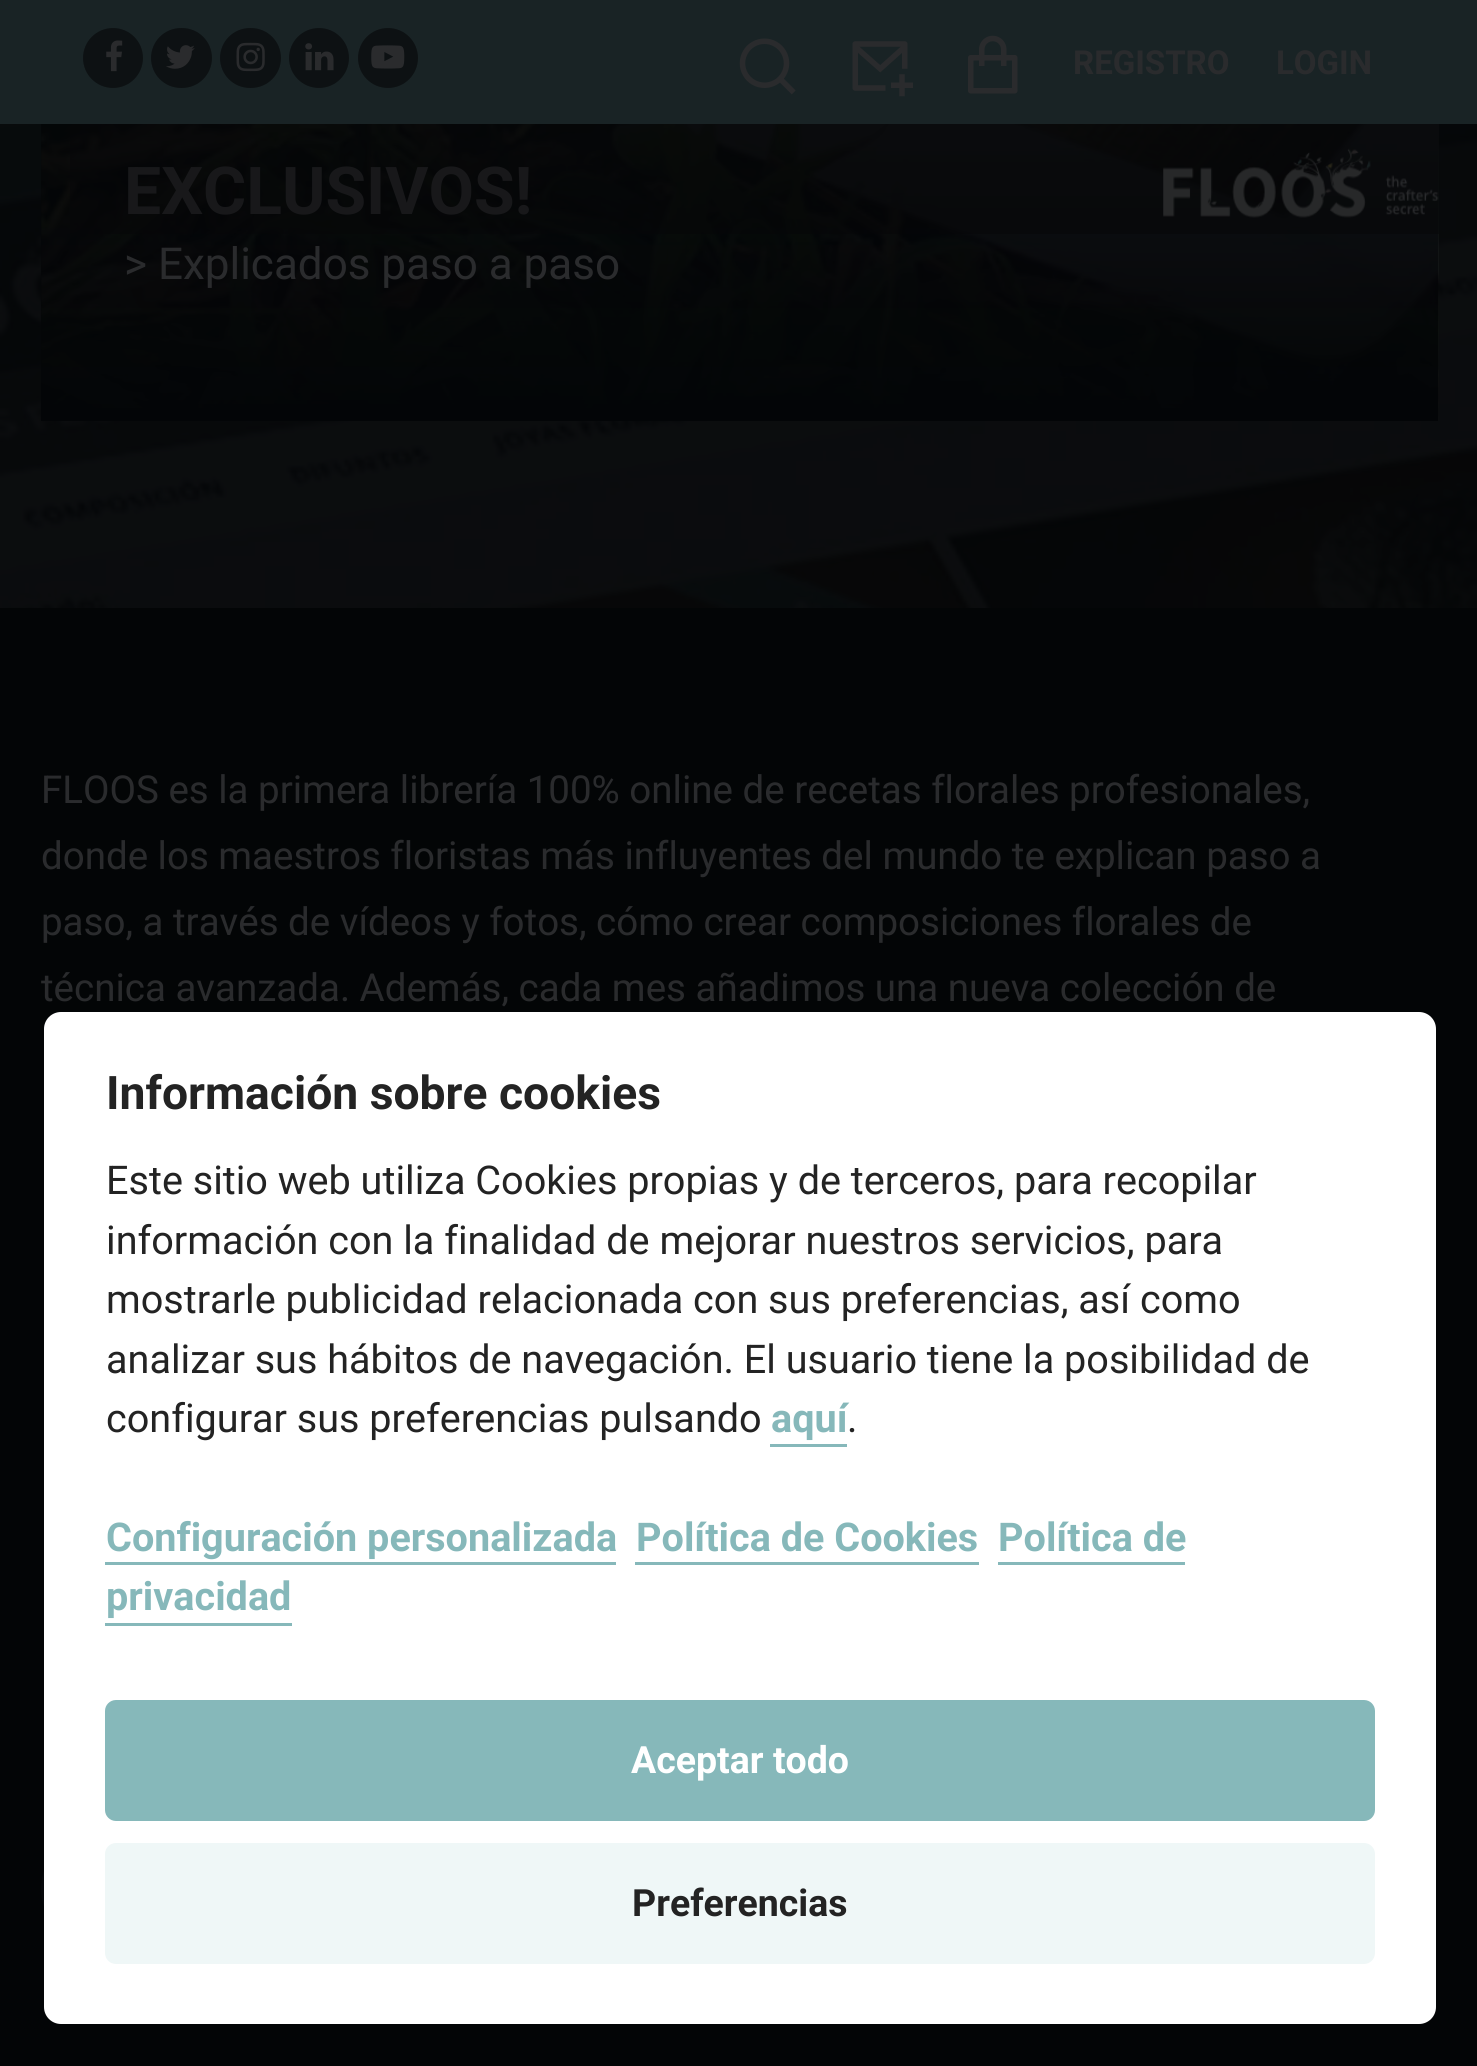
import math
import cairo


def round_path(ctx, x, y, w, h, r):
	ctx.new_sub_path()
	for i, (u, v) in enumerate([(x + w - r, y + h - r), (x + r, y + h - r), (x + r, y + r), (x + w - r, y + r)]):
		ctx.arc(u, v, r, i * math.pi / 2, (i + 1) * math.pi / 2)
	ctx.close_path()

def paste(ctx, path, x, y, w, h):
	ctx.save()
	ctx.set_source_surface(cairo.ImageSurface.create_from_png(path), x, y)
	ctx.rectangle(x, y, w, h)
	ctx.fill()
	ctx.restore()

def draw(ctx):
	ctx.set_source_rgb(1, 1, 1)
	ctx.paint()
	paste(ctx, 'media/10.png', 0, 124, 1477, 484)
	paste(ctx, 'media/11.png', 41, 124, 1398, 297)
	gradient = cairo.LinearGradient(740, 421, 740, -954)
	gradient.add_color_stop_rgba(0, 0.012, 0.02, 0.027, 1)
	gradient.add_color_stop_rgba(0.7, 0.012, 0.02, 0.027, 0)
	gradient.add_color_stop_rgba(1, 0.012, 0.02, 0.027, 0)
	ctx.set_source(gradient)
	ctx.rectangle(41, 124, 1397, 297)
	ctx.fill()
	ctx.select_font_face('Roboto', cairo.FONT_SLANT_NORMAL, cairo.FONT_WEIGHT_BOLD)
	ctx.set_font_size(66)
	ctx.set_source_rgb(0.165, 0.169, 0.176)
	ctx.move_to(124, 214)
	ctx.show_text('EXCLUSIVOS!')
	ctx.set_source_rgba(0.024, 0.031, 0.039, 0.5)
	ctx.rectangle(70, 124, 1369, 110)
	ctx.fill()
	ctx.set_source_rgb(0.098, 0.137, 0.145)
	ctx.rectangle(0, 0, 1477, 124)
	ctx.fill()
	ctx.set_source_rgb(0.051, 0.067, 0.075)
	ctx.arc(113, 58, 30, 0, 2 * math.pi)
	ctx.fill()
	paste(ctx, 'media/1.png', 106, 40, 17, 32)
	round_path(ctx, 151, 28, 61, 60, 30)
	ctx.fill()
	paste(ctx, 'media/2.png', 166, 45, 29, 24)
	round_path(ctx, 220, 28, 61, 60, 30)
	ctx.fill()
	paste(ctx, 'media/3.png', 236, 42, 29, 30)
	ctx.arc(319, 58, 30, 0, 2 * math.pi)
	ctx.fill()
	paste(ctx, 'media/4.png', 305, 43, 29, 28)
	ctx.arc(388, 58, 30, 0, 2 * math.pi)
	ctx.fill()
	paste(ctx, 'media/5.png', 371, 45, 34, 24)
	paste(ctx, 'media/6.png', 739, 38, 57, 57)
	paste(ctx, 'media/7.png', 852, 41, 61, 56)
	paste(ctx, 'media/8.png', 968, 35, 50, 59)
	ctx.set_font_size(33)
	ctx.set_source_rgb(0.165, 0.169, 0.176)
	ctx.move_to(1073, 74)
	ctx.show_text('REGISTRO')
	ctx.move_to(1276, 74)
	ctx.show_text('LOGIN')
	paste(ctx, 'media/9.png', 1163, 148, 276, 70)
	ctx.select_font_face('Roboto')
	ctx.set_font_size(44)
	ctx.move_to(124, 279)
	ctx.show_text('> Explicados paso a paso')
	ctx.set_source_rgb(0.012, 0.02, 0.027)
	ctx.rectangle(0, 608, 1477, 1458)
	ctx.fill()
	ctx.set_font_size(38.5)
	ctx.set_source_rgb(0.165, 0.169, 0.176)
	for x, y, s in [
		(41, 803, 'FLOOS es la primera librería 100% online de recetas florales profesionales,'),
		(41, 869, 'donde los maestros floristas más influyentes del mundo te explican paso a'),
		(41, 935, 'paso, a través de vídeos y fotos, cómo crear composiciones florales de'),
		(41, 1001, 'técnica avanzada. Además, cada mes añadimos una nueva colección de'),
	]:
		ctx.move_to(x, y)
		ctx.show_text(s)
	ctx.set_source_rgb(0.031, 0.039, 0.043)
	ctx.new_path()
	ctx.arc(96, 1889, 55, 0, 2 * math.pi)
	ctx.fill()
	ctx.set_source_rgb(1, 1, 1)
	round_path(ctx, 44, 1012, 1392, 1012, 17)
	ctx.fill()
	ctx.select_font_face('Roboto', cairo.FONT_SLANT_NORMAL, cairo.FONT_WEIGHT_BOLD)
	ctx.set_font_size(46.25)
	ctx.set_source_rgb(0.137, 0.137, 0.137)
	ctx.move_to(106, 1109)
	ctx.show_text('Información sobre cookies')
	ctx.select_font_face('Roboto')
	ctx.set_font_size(39.6)
	for x, y, s in [
		(106, 1194, 'Este sitio web utiliza Cookies propias y de terceros, para recopilar'),
		(106, 1254, 'información con la finalidad de mejorar nuestros servicios, para'),
		(106, 1313, 'mostrarle publicidad relacionada con sus preferencias, así como'),
		(106, 1373, 'analizar sus hábitos de navegación. El usuario tiene la posibilidad de'),
		(106, 1432, 'configurar sus preferencias pulsando'),
	]:
		ctx.move_to(x, y)
		ctx.show_text(s)
	ctx.select_font_face('Roboto', cairo.FONT_SLANT_NORMAL, cairo.FONT_WEIGHT_BOLD)
	ctx.set_source_rgb(0.525, 0.722, 0.729)
	ctx.move_to(771, 1432)
	ctx.show_text('aquí')
	ctx.rectangle(770, 1444, 77, 3)
	ctx.fill()
	ctx.select_font_face('Roboto')
	ctx.set_source_rgb(0.137, 0.137, 0.137)
	ctx.move_to(847, 1432)
	ctx.show_text('.')
	ctx.select_font_face('Roboto', cairo.FONT_SLANT_NORMAL, cairo.FONT_WEIGHT_BOLD)
	ctx.set_source_rgb(0.525, 0.722, 0.729)
	ctx.move_to(106, 1551)
	ctx.show_text('Configuración personalizada')
	ctx.rectangle(105, 1562, 511, 3)
	ctx.fill()
	ctx.move_to(636, 1551)
	ctx.show_text('Política de Cookies')
	ctx.rectangle(635, 1562, 344, 3)
	ctx.fill()
	ctx.move_to(998, 1551)
	ctx.show_text('Política de')
	ctx.rectangle(998, 1562, 187, 3)
	ctx.fill()
	ctx.move_to(106, 1610)
	ctx.show_text('privacidad')
	ctx.rectangle(105, 1623, 187, 3)
	ctx.fill()
	round_path(ctx, 105, 1700, 1270, 121, 11)
	ctx.fill()
	ctx.set_font_size(37.5)
	ctx.set_source_rgb(1, 1, 1)
	ctx.move_to(631, 1773)
	ctx.show_text('Aceptar todo')
	ctx.set_source_rgb(0.937, 0.965, 0.965)
	round_path(ctx, 105, 1843, 1270, 121, 11)
	ctx.fill()
	ctx.set_source_rgb(0.137, 0.137, 0.137)
	ctx.move_to(632, 1916)
	ctx.show_text('Preferencias')


surface = cairo.ImageSurface(cairo.FORMAT_RGB24, 1477, 2066)
ctx = cairo.Context(surface)
options = cairo.FontOptions()
options.set_hint_metrics(cairo.HINT_METRICS_OFF)
options.set_hint_style(cairo.HINT_STYLE_NONE)
ctx.set_font_options(options)
ctx.set_miter_limit(4)
draw(ctx)
surface.write_to_png('image.png')
